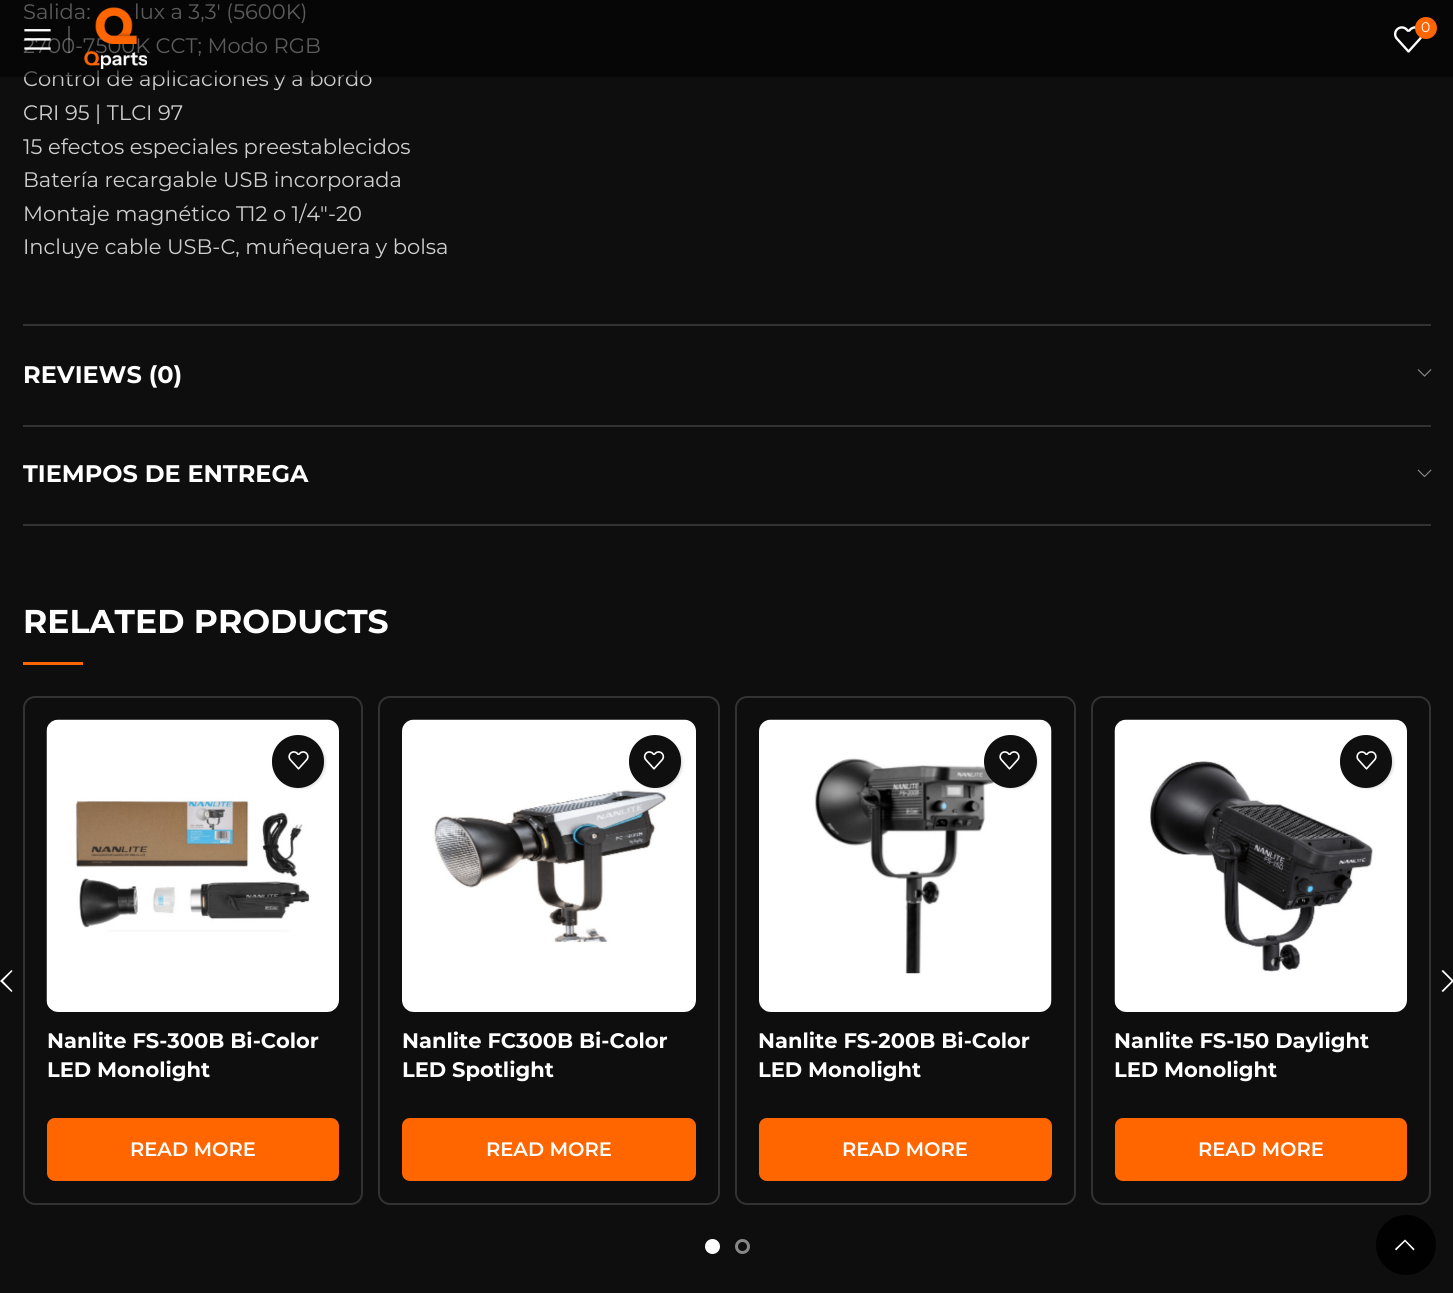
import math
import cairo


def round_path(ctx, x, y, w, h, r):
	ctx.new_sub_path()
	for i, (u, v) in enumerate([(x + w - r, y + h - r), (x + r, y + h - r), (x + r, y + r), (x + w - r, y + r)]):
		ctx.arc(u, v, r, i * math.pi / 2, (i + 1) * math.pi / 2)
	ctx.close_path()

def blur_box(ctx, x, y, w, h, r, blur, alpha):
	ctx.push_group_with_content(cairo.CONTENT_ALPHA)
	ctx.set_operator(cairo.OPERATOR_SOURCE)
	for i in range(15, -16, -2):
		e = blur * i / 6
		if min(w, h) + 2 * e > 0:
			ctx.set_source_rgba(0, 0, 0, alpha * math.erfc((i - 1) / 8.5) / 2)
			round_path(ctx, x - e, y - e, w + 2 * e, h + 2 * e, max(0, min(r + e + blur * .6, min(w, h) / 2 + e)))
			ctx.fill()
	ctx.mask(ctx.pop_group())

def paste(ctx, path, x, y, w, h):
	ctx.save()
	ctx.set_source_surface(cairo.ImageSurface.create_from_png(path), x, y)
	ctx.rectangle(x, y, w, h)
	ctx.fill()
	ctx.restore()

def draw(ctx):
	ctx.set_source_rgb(0.055, 0.055, 0.055)
	ctx.paint()
	ctx.set_source_rgb(0.196, 0.196, 0.196)
	ctx.rectangle(23, 324, 1408, 2)
	ctx.fill()
	ctx.select_font_face('Montserrat')
	ctx.set_font_size(21)
	ctx.set_source_rgb(0.812, 0.812, 0.812)
	for x, y, s in [
		(23, 19, 'Salida:'),
		(134, 19, 'lux a 3,3′ (5600K)'),
		(23, 53, '2700-7500K CCT; Modo RGB'),
		(23, 86, 'Control de aplicaciones y a bordo'),
		(23, 120, 'CRI 95 | TLCI 97'),
		(23, 154, '15 efectos especiales preestablecidos'),
		(23, 187, 'Batería recargable USB incorporada'),
		(23, 221, 'Montaje magnético T12 o 1/4″-20'),
		(23, 254, 'Incluye cable USB-C, muñequera y bolsa'),
	]:
		ctx.move_to(x, y)
		ctx.show_text(s)
	ctx.set_source_rgb(0.196, 0.196, 0.196)
	ctx.rectangle(23, 425, 1408, 2)
	ctx.fill()
	ctx.select_font_face('Montserrat', cairo.FONT_SLANT_NORMAL, cairo.FONT_WEIGHT_BOLD)
	ctx.set_font_size(24)
	ctx.set_source_rgb(1, 1, 1)
	ctx.move_to(23, 383)
	ctx.show_text('REVIEWS (0)')
	paste(ctx, 'media/1.png', 1417, 369, 15, 8)
	ctx.set_source_rgb(0.196, 0.196, 0.196)
	ctx.rectangle(23, 524, 1408, 2)
	ctx.fill()
	ctx.set_source_rgb(1, 1, 1)
	ctx.move_to(23, 482)
	ctx.show_text('TIEMPOS DE ENTREGA')
	paste(ctx, 'media/2.png', 1417, 469, 15, 9)
	ctx.set_font_size(33)
	ctx.move_to(23, 633)
	ctx.show_text('RELATED PRODUCTS')
	ctx.set_source_rgb(1, 0.4, 0)
	ctx.rectangle(23, 662, 60, 3)
	ctx.fill()
	ctx.set_source_rgb(1, 1, 1)
	ctx.new_path()
	ctx.move_to(12.5, 971)
	ctx.line_to(11.5, 970)
	ctx.line_to(0, 981)
	ctx.line_to(11.5, 992)
	ctx.line_to(12.5, 991)
	ctx.line_to(3, 981)
	ctx.close_path()
	ctx.fill()
	ctx.new_path()
	ctx.move_to(1441.5, 971)
	ctx.line_to(1451.5, 981)
	ctx.line_to(1441.5, 991)
	ctx.line_to(1443, 992)
	ctx.line_to(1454, 981)
	ctx.line_to(1443, 970)
	ctx.close_path()
	ctx.fill()
	round_path(ctx, 24, 697, 338, 507, 11)
	ctx.set_source_rgb(0.196, 0.196, 0.196)
	ctx.stroke()
	paste(ctx, 'media/3.png', 46, 719, 293, 293)
	ctx.set_source_rgb(0, 0, 0)
	blur_box(ctx, 273, 737, 53, 52, 26, 1, 0.1)
	ctx.set_source_rgb(0.059, 0.059, 0.059)
	round_path(ctx, 272, 735, 52, 53, 26)
	ctx.fill()
	paste(ctx, 'media/4.png', 288, 751, 21, 19)
	ctx.set_font_size(21)
	ctx.set_source_rgb(1, 1, 1)
	ctx.move_to(47, 1048)
	ctx.show_text('Nanlite FS-300B Bi-Color')
	ctx.move_to(47, 1077)
	ctx.show_text('LED Monolight')
	ctx.set_source_rgb(1, 0.4, 0)
	round_path(ctx, 47, 1118, 292, 63, 8)
	ctx.fill()
	ctx.select_font_face('Montserrat SemiBold')
	ctx.set_font_size(19.5)
	ctx.set_source_rgb(1, 1, 1)
	ctx.move_to(130, 1156)
	ctx.show_text('READ MORE')
	round_path(ctx, 379, 697, 340, 507, 11)
	ctx.set_source_rgb(0.196, 0.196, 0.196)
	ctx.stroke()
	paste(ctx, 'media/5.png', 402, 719, 294, 293)
	ctx.set_source_rgb(0, 0, 0)
	blur_box(ctx, 630, 737, 53, 52, 26, 1, 0.1)
	ctx.set_source_rgb(0.059, 0.059, 0.059)
	round_path(ctx, 629, 735, 52, 53, 26)
	ctx.fill()
	paste(ctx, 'media/6.png', 643, 751, 22, 19)
	ctx.select_font_face('Montserrat', cairo.FONT_SLANT_NORMAL, cairo.FONT_WEIGHT_BOLD)
	ctx.set_font_size(21)
	ctx.set_source_rgb(1, 1, 1)
	ctx.move_to(402, 1048)
	ctx.show_text('Nanlite FC300B Bi-Color')
	ctx.move_to(402, 1077)
	ctx.show_text('LED Spotlight')
	ctx.set_source_rgb(1, 0.4, 0)
	round_path(ctx, 402, 1118, 294, 63, 8)
	ctx.fill()
	ctx.select_font_face('Montserrat SemiBold')
	ctx.set_font_size(19.5)
	ctx.set_source_rgb(1, 1, 1)
	ctx.move_to(486, 1156)
	ctx.show_text('READ MORE')
	round_path(ctx, 736, 697, 339, 507, 11)
	ctx.set_source_rgb(0.196, 0.196, 0.196)
	ctx.stroke()
	paste(ctx, 'media/7.png', 759, 719, 293, 293)
	ctx.set_source_rgb(0, 0, 0)
	blur_box(ctx, 986, 737, 52, 52, 26, 1, 0.1)
	ctx.set_source_rgb(0.059, 0.059, 0.059)
	ctx.arc(1010.5, 761.5, 26.5, 0, 2 * math.pi)
	ctx.fill()
	paste(ctx, 'media/4.png', 999, 751, 21, 19)
	ctx.select_font_face('Montserrat', cairo.FONT_SLANT_NORMAL, cairo.FONT_WEIGHT_BOLD)
	ctx.set_font_size(21)
	ctx.set_source_rgb(1, 1, 1)
	ctx.move_to(758, 1048)
	ctx.show_text('Nanlite FS-200B Bi-Color')
	ctx.move_to(758, 1077)
	ctx.show_text('LED Monolight')
	ctx.set_source_rgb(1, 0.4, 0)
	round_path(ctx, 759, 1118, 293, 63, 8)
	ctx.fill()
	ctx.select_font_face('Montserrat SemiBold')
	ctx.set_font_size(19.5)
	ctx.set_source_rgb(1, 1, 1)
	ctx.move_to(842, 1156)
	ctx.show_text('READ MORE')
	round_path(ctx, 1092, 697, 338, 507, 11)
	ctx.set_source_rgb(0.196, 0.196, 0.196)
	ctx.stroke()
	paste(ctx, 'media/8.png', 1114, 719, 293, 293)
	ctx.set_source_rgb(0, 0, 0)
	blur_box(ctx, 1341, 737, 53, 52, 26, 1, 0.1)
	ctx.set_source_rgb(0.059, 0.059, 0.059)
	round_path(ctx, 1340, 735, 52, 53, 26)
	ctx.fill()
	paste(ctx, 'media/4.png', 1356, 751, 21, 19)
	ctx.select_font_face('Montserrat', cairo.FONT_SLANT_NORMAL, cairo.FONT_WEIGHT_BOLD)
	ctx.set_font_size(21)
	ctx.set_source_rgb(1, 1, 1)
	ctx.move_to(1114, 1048)
	ctx.show_text('Nanlite FS-150 Daylight')
	ctx.move_to(1114, 1077)
	ctx.show_text('LED Monolight')
	ctx.set_source_rgb(1, 0.4, 0)
	round_path(ctx, 1115, 1118, 292, 63, 8)
	ctx.fill()
	ctx.select_font_face('Montserrat SemiBold')
	ctx.set_font_size(19.5)
	ctx.set_source_rgb(1, 1, 1)
	ctx.move_to(1198, 1156)
	ctx.show_text('READ MORE')
	ctx.new_path()
	ctx.arc(712.5, 1246.5, 6, 0, 2 * math.pi)
	ctx.fill_preserve()
	ctx.set_line_width(3)
	ctx.stroke()
	ctx.arc(742.5, 1246.5, 6, 0, 2 * math.pi)
	ctx.set_source_rgb(0.529, 0.529, 0.529)
	ctx.stroke()
	ctx.save()
	ctx.set_fill_rule(cairo.FILL_RULE_EVEN_ODD)
	ctx.new_path()
	ctx.move_to(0, 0)
	ctx.line_to(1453, 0)
	ctx.line_to(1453, 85)
	ctx.line_to(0, 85)
	ctx.close_path()
	ctx.move_to(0, 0)
	ctx.line_to(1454, 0)
	ctx.line_to(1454, 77)
	ctx.line_to(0, 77)
	ctx.close_path()
	ctx.clip()
	ctx.set_source_rgb(0, 0, 0)
	blur_box(ctx, 0, 2, 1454, 76, 0, 2, 0.1)
	ctx.restore()
	ctx.set_source_rgba(0, 0, 0, 0.56)
	ctx.rectangle(0, 0, 1453, 77)
	ctx.fill()
	paste(ctx, 'media/9.png', 24, 29, 27, 21)
	ctx.set_source_rgba(1, 1, 1, 0.25)
	ctx.rectangle(68, 26, 2, 27)
	ctx.fill()
	paste(ctx, 'media/10.png', 84, 7, 63, 62)
	paste(ctx, 'media/11.png', 1394, 26, 28, 27)
	ctx.set_source_rgb(1, 0.4, 0)
	ctx.arc(1426, 28, 11, 0, 2 * math.pi)
	ctx.fill()
	ctx.select_font_face('Montserrat')
	ctx.set_font_size(14)
	ctx.set_source_rgb(1, 1, 1)
	ctx.move_to(1421, 32)
	ctx.show_text('0')
	ctx.set_source_rgb(0.004, 0.004, 0.004)
	ctx.new_path()
	ctx.arc(1406, 1245, 30, 0, 2 * math.pi)
	ctx.fill()
	ctx.set_source_rgb(1, 1, 1)
	ctx.new_path()
	ctx.move_to(1413.5, 1250.5)
	ctx.line_to(1414.5, 1249)
	ctx.line_to(1405, 1239.5)
	ctx.line_to(1395, 1249)
	ctx.line_to(1396, 1250.5)
	ctx.line_to(1405, 1241.5)
	ctx.close_path()
	ctx.fill()


surface = cairo.ImageSurface(cairo.FORMAT_RGB24, 1453, 1293)
ctx = cairo.Context(surface)
options = cairo.FontOptions()
options.set_hint_metrics(cairo.HINT_METRICS_OFF)
options.set_hint_style(cairo.HINT_STYLE_NONE)
ctx.set_font_options(options)
ctx.set_miter_limit(4)
draw(ctx)
surface.write_to_png('image.png')
